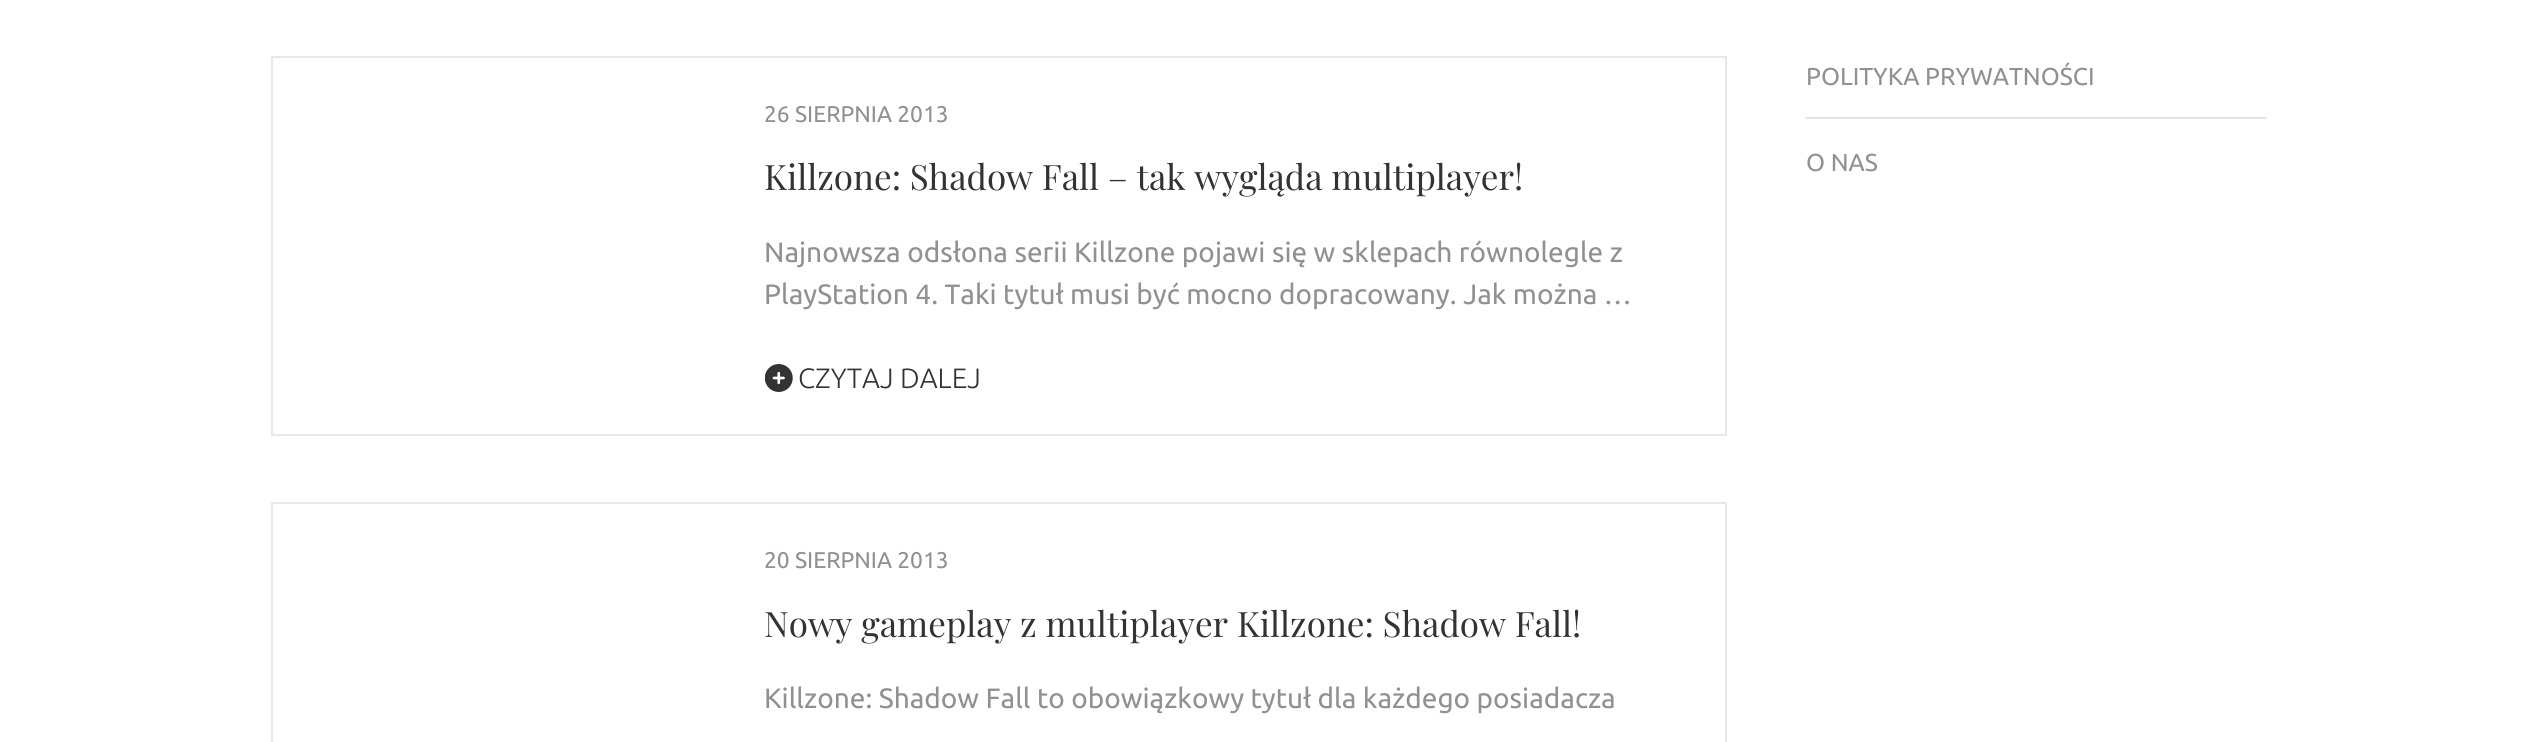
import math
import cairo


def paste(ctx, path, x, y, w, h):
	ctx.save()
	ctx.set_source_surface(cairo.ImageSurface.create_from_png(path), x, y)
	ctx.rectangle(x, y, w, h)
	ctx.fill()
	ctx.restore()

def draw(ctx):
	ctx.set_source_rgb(1, 1, 1)
	ctx.paint()
	ctx.rectangle(272, 57, 1454, 378)
	ctx.set_source_rgb(0.91, 0.91, 0.91)
	ctx.stroke()
	ctx.select_font_face('Ubuntu')
	ctx.set_font_size(22.75)
	ctx.set_source_rgb(0.569, 0.569, 0.569)
	ctx.move_to(764, 122)
	ctx.show_text('26 SIERPNIA 2013')
	ctx.select_font_face('Playfair Display')
	ctx.set_font_size(35)
	ctx.set_source_rgb(0.2, 0.2, 0.2)
	ctx.move_to(764, 190)
	ctx.show_text('Killzone: Shadow Fall – tak wygląda multiplayer!')
	ctx.select_font_face('Ubuntu')
	ctx.set_font_size(28)
	ctx.set_source_rgb(0.569, 0.569, 0.569)
	ctx.move_to(764, 262)
	ctx.show_text('Najnowsza odsłona serii Killzone pojawi się w sklepach równolegle z')
	ctx.move_to(764, 304)
	ctx.show_text('PlayStation 4. Taki tytuł musi być mocno dopracowany. Jak można …')
	paste(ctx, 'media/1.png', 765, 364, 28, 28)
	ctx.select_font_face('Ubuntu Light')
	ctx.set_source_rgb(0.2, 0.2, 0.2)
	ctx.move_to(798, 388)
	ctx.show_text('CZYTAJ DALEJ')
	ctx.rectangle(272, 503, 1454, 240)
	ctx.set_source_rgb(0.91, 0.91, 0.91)
	ctx.stroke()
	ctx.select_font_face('Ubuntu')
	ctx.set_font_size(22.75)
	ctx.set_source_rgb(0.569, 0.569, 0.569)
	ctx.move_to(764, 568)
	ctx.show_text('20 SIERPNIA 2013')
	ctx.select_font_face('Playfair Display')
	ctx.set_font_size(35)
	ctx.set_source_rgb(0.2, 0.2, 0.2)
	ctx.move_to(764, 637)
	ctx.show_text('Nowy gameplay z multiplayer Killzone: Shadow Fall!')
	ctx.select_font_face('Ubuntu')
	ctx.set_font_size(28)
	ctx.set_source_rgb(0.569, 0.569, 0.569)
	ctx.move_to(764, 708)
	ctx.show_text('Killzone: Shadow Fall to obowiązkowy tytuł dla każdego posiadacza')
	ctx.set_source_rgb(0.89, 0.89, 0.89)
	ctx.rectangle(1806, 117, 460, 2)
	ctx.fill()
	ctx.set_font_size(24.5)
	ctx.set_source_rgb(0.569, 0.569, 0.569)
	ctx.move_to(1806, 85)
	ctx.show_text('POLITYKA PRYWATNOŚCI')
	ctx.move_to(1806, 171)
	ctx.show_text('O NAS')


surface = cairo.ImageSurface(cairo.FORMAT_RGB24, 2535, 742)
ctx = cairo.Context(surface)
options = cairo.FontOptions()
options.set_hint_metrics(cairo.HINT_METRICS_OFF)
options.set_hint_style(cairo.HINT_STYLE_NONE)
ctx.set_font_options(options)
ctx.set_miter_limit(4)
draw(ctx)
surface.write_to_png('image.png')
